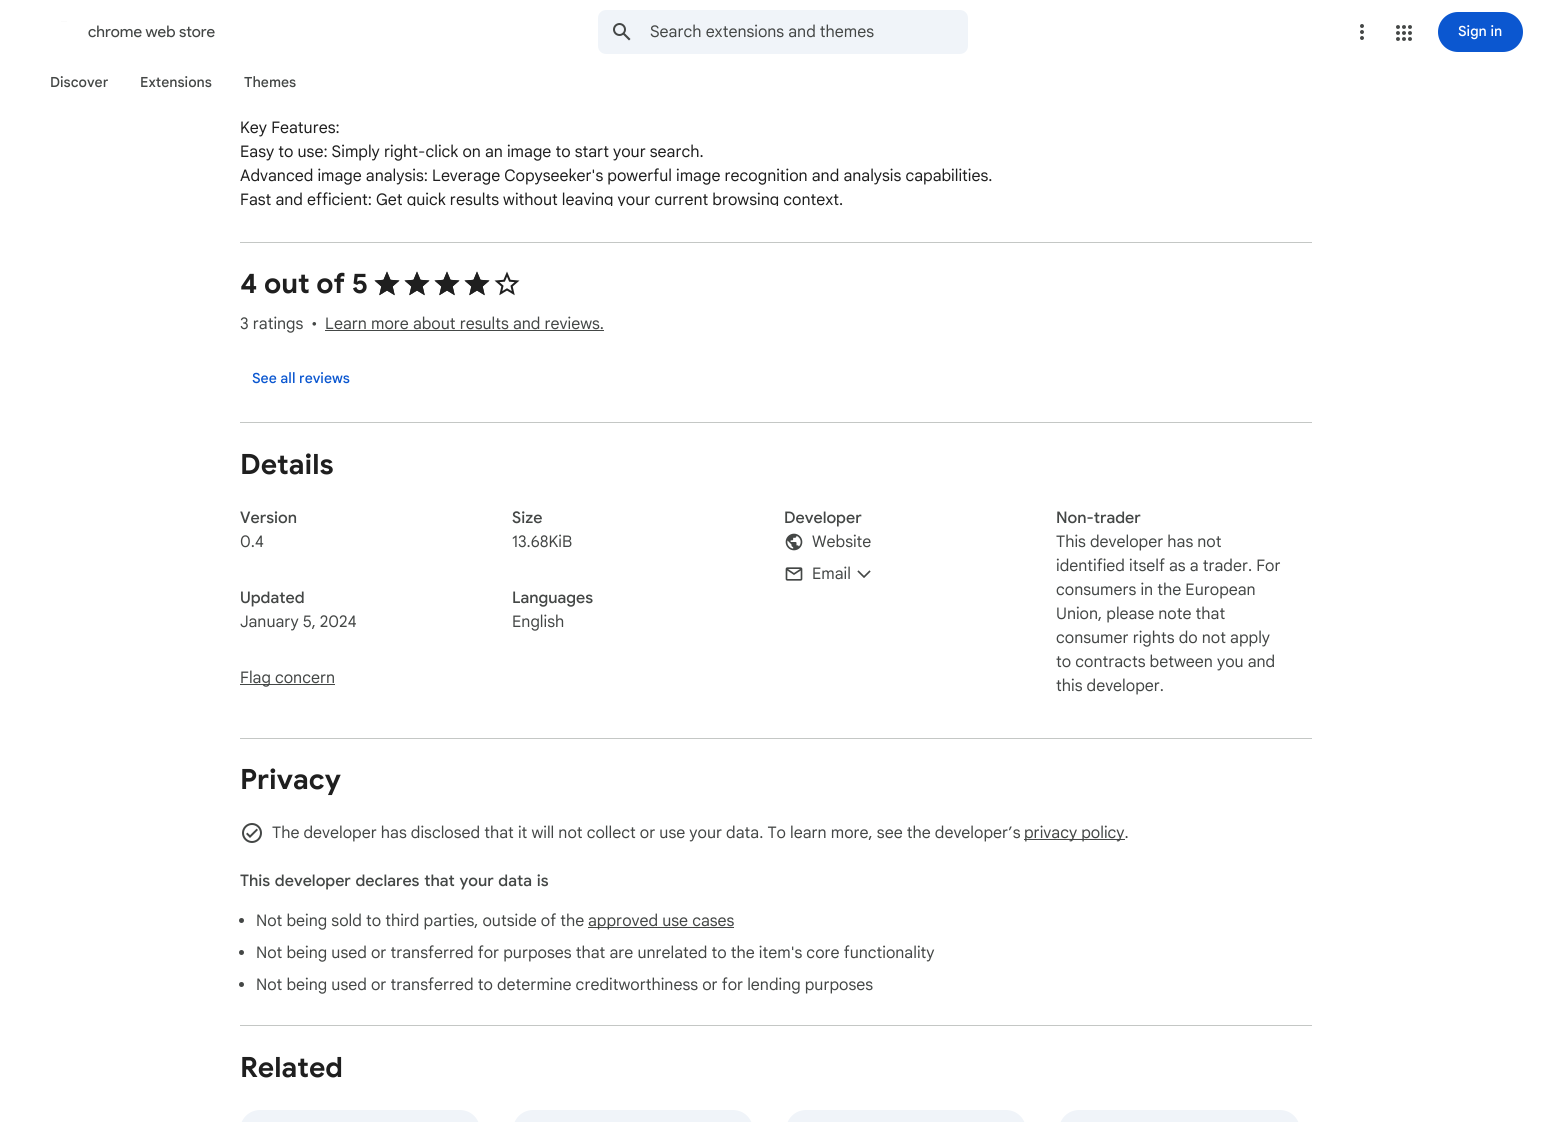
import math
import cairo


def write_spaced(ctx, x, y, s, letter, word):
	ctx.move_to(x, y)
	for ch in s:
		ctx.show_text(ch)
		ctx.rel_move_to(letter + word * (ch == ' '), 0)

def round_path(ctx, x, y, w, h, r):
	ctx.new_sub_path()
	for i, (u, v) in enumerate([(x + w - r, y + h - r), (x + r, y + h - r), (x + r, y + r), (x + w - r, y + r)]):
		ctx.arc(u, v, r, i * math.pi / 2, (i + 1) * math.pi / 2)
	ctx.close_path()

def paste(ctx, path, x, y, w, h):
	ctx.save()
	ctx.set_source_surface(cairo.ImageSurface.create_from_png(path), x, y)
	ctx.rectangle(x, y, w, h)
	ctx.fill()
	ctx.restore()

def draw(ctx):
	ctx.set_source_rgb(1, 1, 1)
	ctx.paint()
	paste(ctx, 'media/1.png', 61, 21, 6, 1)
	ctx.select_font_face('Product Sans')
	ctx.set_font_size(16)
	ctx.set_source_rgb(0.267, 0.278, 0.275)
	ctx.move_to(88, 37)
	ctx.show_text('chrome web store')
	ctx.set_source_rgb(0.941, 0.957, 0.976)
	round_path(ctx, 598, 10, 370, 44, 8)
	ctx.fill()
	paste(ctx, 'media/2.png', 613, 23, 18, 18)
	ctx.select_font_face('Google Sans')
	ctx.set_source_rgb(0.267, 0.278, 0.275)
	ctx.move_to(650, 37)
	ctx.show_text('Search extensions and themes')
	paste(ctx, 'media/3.png', 1360, 24, 4, 16)
	paste(ctx, 'media/4.png', 1396, 25, 16, 16)
	ctx.set_source_rgb(0.043, 0.341, 0.816)
	round_path(ctx, 1438, 12, 85, 40, 20)
	ctx.fill()
	ctx.select_font_face('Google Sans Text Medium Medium')
	ctx.set_font_size(14)
	ctx.set_source_rgb(1, 1, 1)
	ctx.move_to(1458, 36)
	ctx.show_text('Sign in')
	ctx.set_source_rgb(0.267, 0.278, 0.275)
	for x, y, s in [
		(50, 87, 'Discover'),
		(140, 87, 'Extensions'),
		(244, 87, 'Themes'),
	]:
		ctx.move_to(x, y)
		ctx.show_text(s)
	ctx.set_source_rgb(0.769, 0.78, 0.773)
	ctx.rectangle(240, 242, 1072, 1)
	ctx.fill()
	ctx.select_font_face('Google Sans')
	ctx.set_font_size(16)
	ctx.set_source_rgb(0.122, 0.122, 0.122)
	for x, y, s in [
		(240, 133, 'Key Features:'),
		(240, 157, 'Easy to use: Simply right-click on an image to start your search.'),
		(240, 181, 'Advanced image analysis: Leverage Copyseeker\'s powerful image recognition and analysis capabilities.'),
	]:
		ctx.move_to(x, y)
		ctx.show_text(s)
	ctx.save()
	ctx.rectangle(240, 0, 1072, 206)
	ctx.clip()
	ctx.move_to(240, 205)
	ctx.show_text('Fast and efficient: Get quick results without leaving your current browsing context.')
	ctx.restore()
	ctx.set_source_rgb(0.769, 0.78, 0.773)
	ctx.rectangle(240, 422, 1072, 1)
	ctx.fill()
	ctx.select_font_face('Google Sans', cairo.FONT_SLANT_NORMAL, cairo.FONT_WEIGHT_BOLD)
	ctx.set_font_size(28)
	ctx.set_source_rgb(0.122, 0.122, 0.122)
	ctx.move_to(240, 293)
	ctx.show_text('4 out of 5')
	paste(ctx, 'media/5.png', 374, 271, 26, 25)
	paste(ctx, 'media/5.png', 404, 271, 26, 25)
	paste(ctx, 'media/5.png', 434, 271, 26, 25)
	paste(ctx, 'media/5.png', 464, 271, 26, 25)
	paste(ctx, 'media/5.png', 494, 271, 26, 25)
	paste(ctx, 'media/6.png', 374, 271, 26, 25)
	paste(ctx, 'media/6.png', 404, 271, 26, 25)
	paste(ctx, 'media/6.png', 434, 271, 26, 25)
	paste(ctx, 'media/6.png', 464, 271, 26, 25)
	ctx.select_font_face('Google Sans')
	ctx.set_font_size(16)
	ctx.set_source_rgb(0.267, 0.278, 0.275)
	for x, y, s in [
		(240, 329, '3 ratings'),
		(311, 329, '•'),
		(325, 329, 'Learn more about results and reviews.'),
	]:
		ctx.move_to(x, y)
		ctx.show_text(s)
	ctx.rectangle(325, 330, 279, 1)
	ctx.fill()
	ctx.select_font_face('Google Sans Text Medium Medium')
	ctx.set_font_size(14)
	ctx.set_source_rgb(0.043, 0.341, 0.816)
	ctx.move_to(252, 383)
	ctx.show_text('See all reviews')
	ctx.set_source_rgb(0.769, 0.78, 0.773)
	ctx.rectangle(240, 738, 1072, 1)
	ctx.fill()
	ctx.select_font_face('Google Sans', cairo.FONT_SLANT_NORMAL, cairo.FONT_WEIGHT_BOLD)
	ctx.set_font_size(28)
	ctx.set_source_rgb(0.122, 0.122, 0.122)
	ctx.move_to(240, 474)
	ctx.show_text('Details')
	ctx.select_font_face('Google Sans Medium')
	ctx.set_font_size(16)
	ctx.set_source_rgb(0.267, 0.278, 0.275)
	ctx.move_to(240, 523)
	ctx.show_text('Version')
	ctx.select_font_face('Google Sans')
	ctx.move_to(240, 547)
	ctx.show_text('0.4')
	ctx.select_font_face('Google Sans Medium')
	ctx.move_to(512, 523)
	ctx.show_text('Size')
	ctx.select_font_face('Google Sans')
	ctx.move_to(512, 547)
	ctx.show_text('13.68KiB')
	ctx.select_font_face('Google Sans Medium')
	ctx.move_to(784, 523)
	ctx.show_text('Developer')
	paste(ctx, 'media/7.png', 785, 533, 18, 18)
	ctx.select_font_face('Google Sans')
	ctx.move_to(812, 547)
	ctx.show_text('Website')
	paste(ctx, 'media/8.png', 785, 567, 18, 14)
	ctx.move_to(812, 579)
	ctx.show_text('Email')
	paste(ctx, 'media/9.png', 857, 570, 14, 8)
	ctx.select_font_face('Google Sans Medium')
	ctx.move_to(1056, 523)
	ctx.show_text('Non-trader')
	ctx.select_font_face('Google Sans')
	for x, y, s in [
		(1056, 547, 'This developer has not'),
		(1056, 571, 'identified itself as a trader. For'),
		(1056, 595, 'consumers in the European'),
		(1056, 619, 'Union, please note that'),
		(1056, 643, 'consumer rights do not apply'),
		(1056, 667, 'to contracts between you and'),
		(1056, 691, 'this developer.'),
	]:
		ctx.move_to(x, y)
		ctx.show_text(s)
	ctx.select_font_face('Google Sans Medium')
	ctx.move_to(240, 603)
	ctx.show_text('Updated')
	ctx.select_font_face('Google Sans')
	ctx.move_to(240, 627)
	ctx.show_text('January 5, 2024')
	ctx.select_font_face('Google Sans Medium')
	ctx.move_to(512, 603)
	ctx.show_text('Languages')
	ctx.select_font_face('Google Sans')
	ctx.move_to(512, 627)
	ctx.show_text('English')
	ctx.rectangle(240, 684, 95, 1)
	ctx.fill()
	ctx.move_to(240, 683)
	ctx.show_text('Flag concern')
	ctx.set_source_rgb(0.769, 0.78, 0.773)
	ctx.rectangle(240, 1025, 1072, 1)
	ctx.fill()
	ctx.select_font_face('Google Sans', cairo.FONT_SLANT_NORMAL, cairo.FONT_WEIGHT_BOLD)
	ctx.set_font_size(28)
	ctx.set_source_rgb(0.122, 0.122, 0.122)
	ctx.move_to(240, 789)
	ctx.show_text('Privacy')
	paste(ctx, 'media/10.png', 242, 823, 20, 20)
	ctx.select_font_face('Google Sans')
	ctx.set_font_size(16)
	ctx.set_source_rgb(0.267, 0.278, 0.275)
	ctx.move_to(272, 838)
	ctx.show_text('The developer has disclosed that it will not collect or use your data. To learn more, see the developer’s')
	ctx.rectangle(1024, 839, 101, 1)
	ctx.fill()
	ctx.move_to(1024, 838)
	ctx.show_text('privacy policy.')
	ctx.select_font_face('Google Sans Medium')
	write_spaced(ctx, 240, 886, 'This developer declares that your data is', 0, 1)
	ctx.new_path()
	ctx.arc(241.5, 920.5, 2.5, 0, 2 * math.pi)
	ctx.fill()
	ctx.select_font_face('Google Sans')
	ctx.move_to(256, 926)
	ctx.show_text('Not being sold to third parties, outside of the')
	ctx.rectangle(588, 927, 146, 1)
	ctx.fill()
	ctx.move_to(588, 926)
	ctx.show_text('approved use cases')
	ctx.new_path()
	ctx.arc(241.5, 952.5, 2.5, 0, 2 * math.pi)
	ctx.fill()
	ctx.move_to(256, 958)
	ctx.show_text('Not being used or transferred for purposes that are unrelated to the item\'s core functionality')
	ctx.new_path()
	ctx.arc(241.5, 984.5, 2.5, 0, 2 * math.pi)
	ctx.fill()
	ctx.move_to(256, 990)
	ctx.show_text('Not being used or transferred to determine creditworthiness or for lending purposes')
	ctx.select_font_face('Google Sans', cairo.FONT_SLANT_NORMAL, cairo.FONT_WEIGHT_BOLD)
	ctx.set_font_size(28)
	ctx.set_source_rgb(0.122, 0.122, 0.122)
	ctx.move_to(240, 1077)
	ctx.show_text('Related')
	ctx.set_source_rgb(0.941, 0.957, 0.976)
	round_path(ctx, 240, 1110, 240, 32, 20)
	ctx.fill()
	round_path(ctx, 513, 1110, 240, 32, 20)
	ctx.fill()
	round_path(ctx, 786, 1110, 240, 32, 20)
	ctx.fill()
	round_path(ctx, 1059, 1110, 241, 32, 20)
	ctx.fill()


surface = cairo.ImageSurface(cairo.FORMAT_RGB24, 1551, 1122)
ctx = cairo.Context(surface)
options = cairo.FontOptions()
options.set_hint_metrics(cairo.HINT_METRICS_OFF)
options.set_hint_style(cairo.HINT_STYLE_NONE)
ctx.set_font_options(options)
ctx.set_miter_limit(4)
draw(ctx)
surface.write_to_png('image.png')
